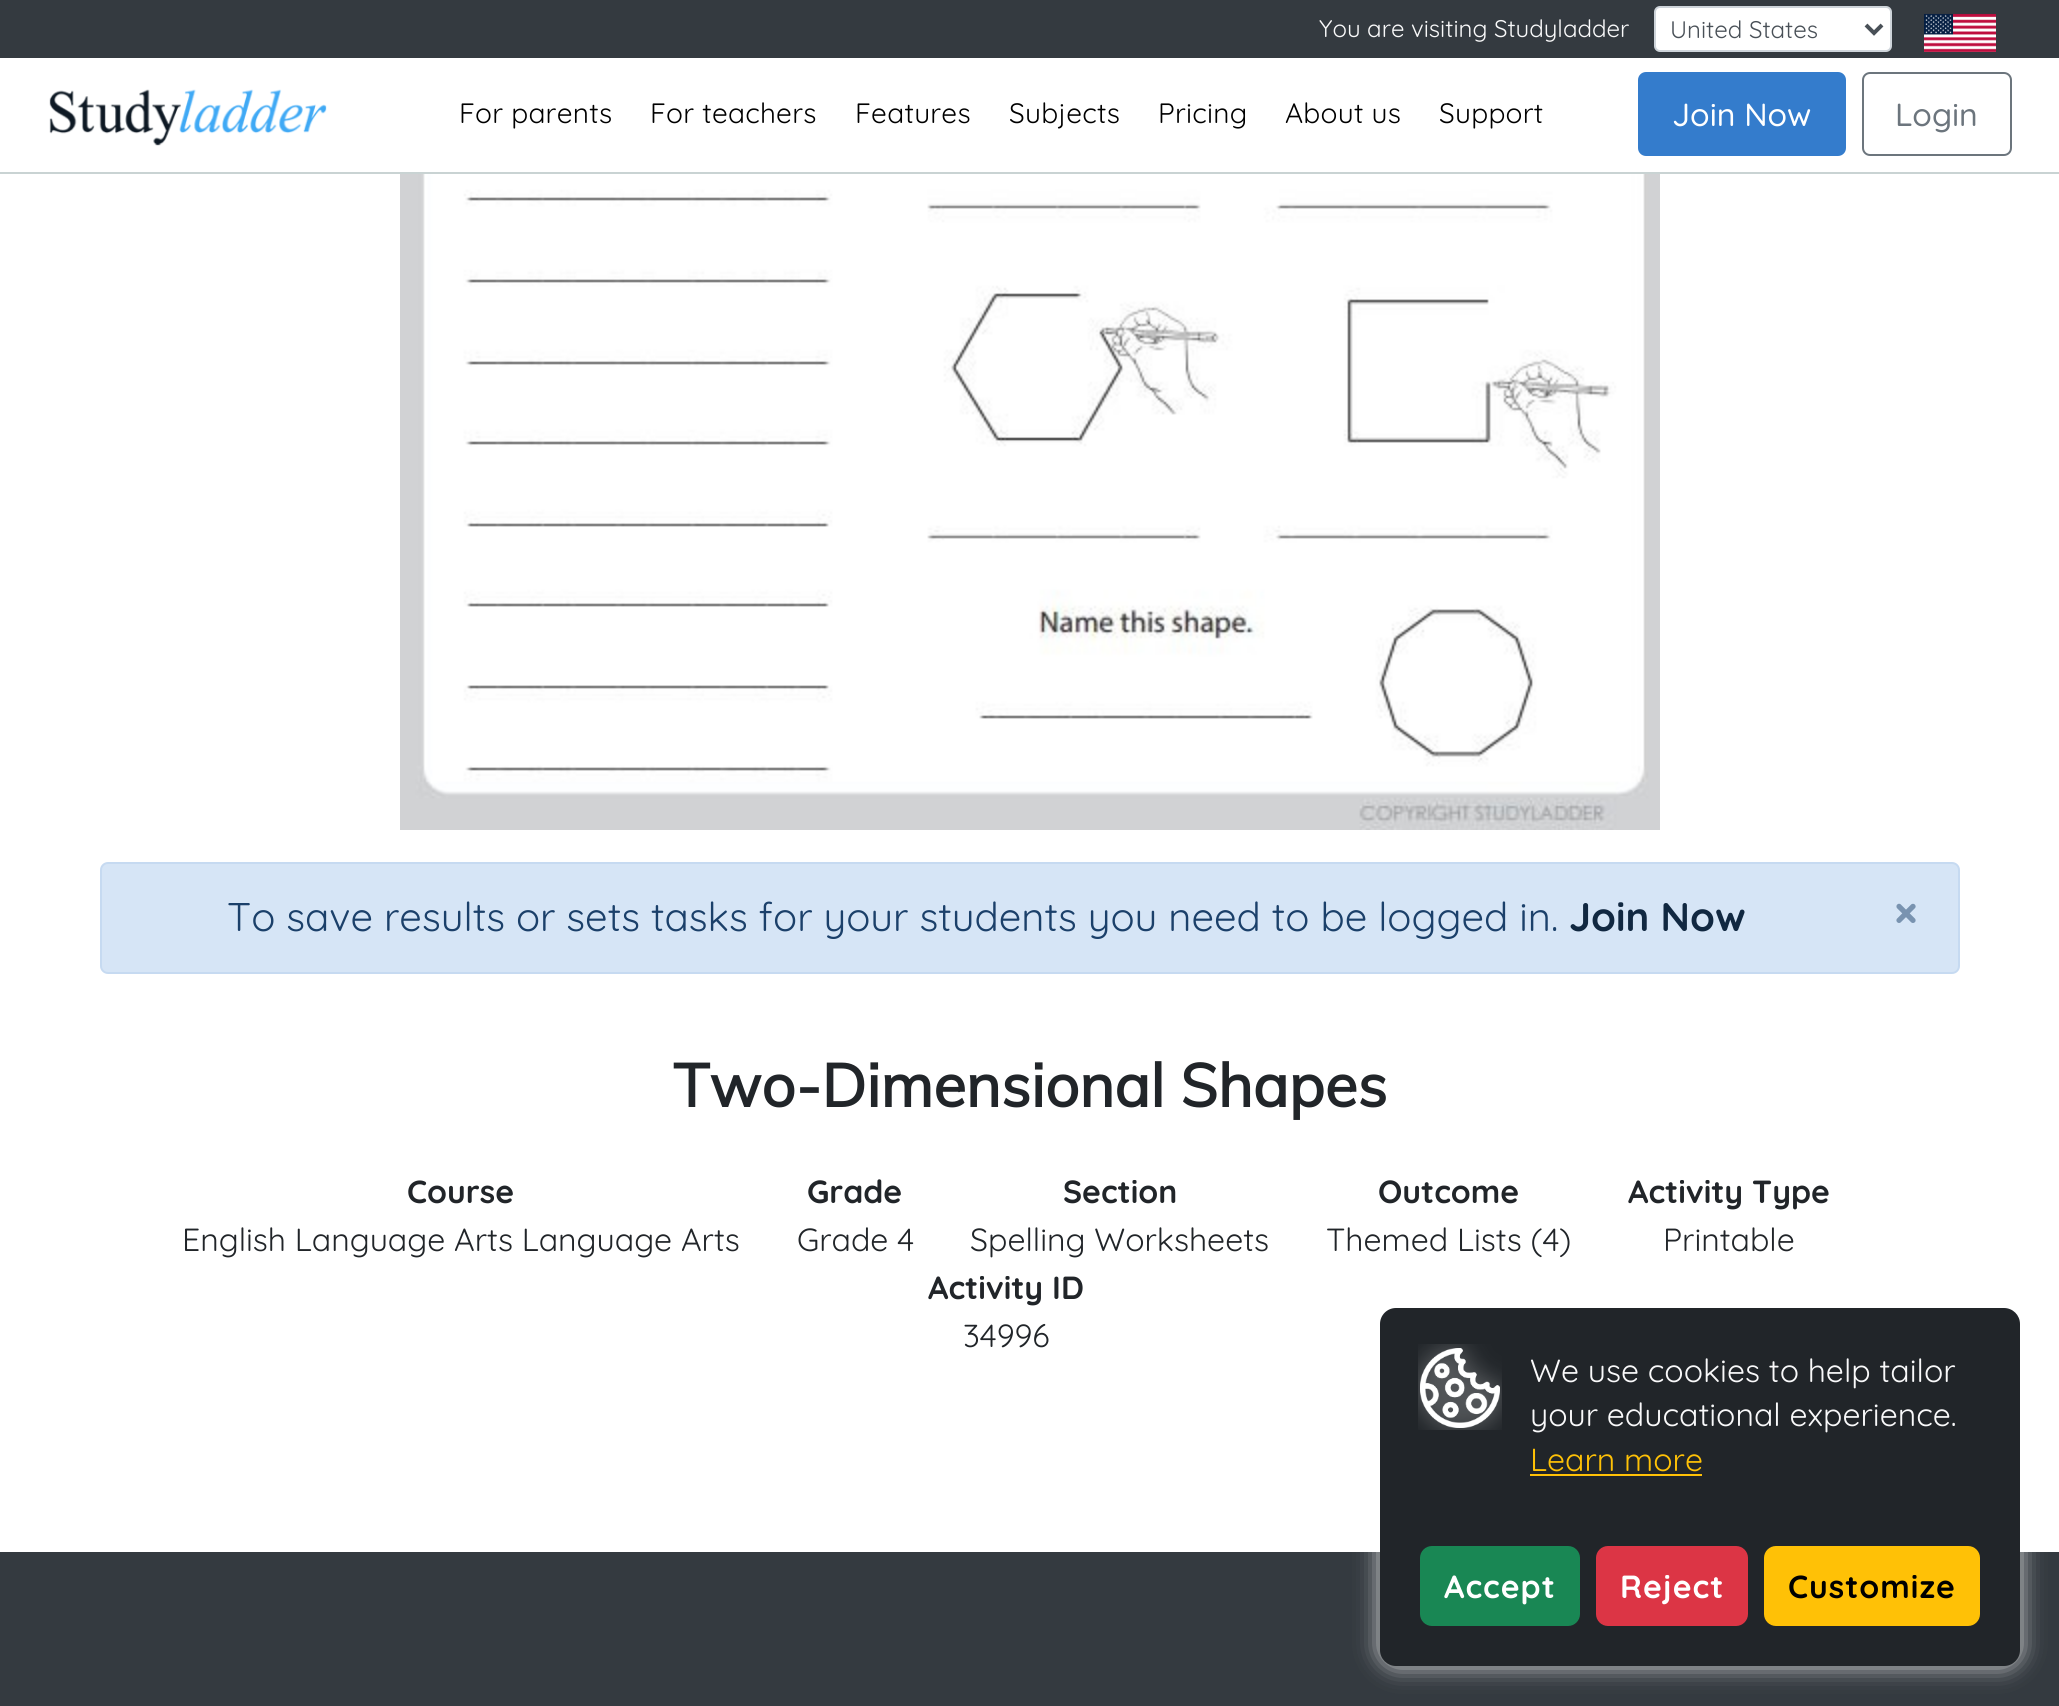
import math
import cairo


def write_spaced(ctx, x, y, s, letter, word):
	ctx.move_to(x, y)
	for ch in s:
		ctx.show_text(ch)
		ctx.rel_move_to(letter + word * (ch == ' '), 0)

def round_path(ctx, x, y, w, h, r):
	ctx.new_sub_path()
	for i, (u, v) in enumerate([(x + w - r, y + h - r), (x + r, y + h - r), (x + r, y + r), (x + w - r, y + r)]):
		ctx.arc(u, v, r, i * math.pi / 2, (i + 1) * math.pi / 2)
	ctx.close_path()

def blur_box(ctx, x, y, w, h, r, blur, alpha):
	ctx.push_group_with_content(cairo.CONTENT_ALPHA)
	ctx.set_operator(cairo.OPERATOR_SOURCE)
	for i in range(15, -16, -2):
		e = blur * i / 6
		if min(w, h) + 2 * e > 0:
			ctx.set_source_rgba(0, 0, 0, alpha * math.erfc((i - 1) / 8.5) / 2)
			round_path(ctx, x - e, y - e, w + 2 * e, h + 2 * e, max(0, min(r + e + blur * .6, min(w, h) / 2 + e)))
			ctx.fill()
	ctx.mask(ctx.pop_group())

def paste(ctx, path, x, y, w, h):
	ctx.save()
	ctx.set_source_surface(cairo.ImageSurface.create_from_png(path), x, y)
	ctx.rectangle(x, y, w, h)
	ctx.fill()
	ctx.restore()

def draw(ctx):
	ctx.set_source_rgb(1, 1, 1)
	ctx.paint()
	ctx.set_source_rgb(0.788, 0.827, 0.827)
	ctx.rectangle(0, 172, 2059, 2)
	ctx.fill()
	ctx.set_source_rgb(0.204, 0.227, 0.251)
	ctx.rectangle(0, 0, 2059, 58)
	ctx.fill()
	ctx.select_font_face('Quicksand')
	ctx.set_font_size(24)
	ctx.set_source_rgb(0.973, 0.976, 0.98)
	ctx.move_to(1319, 37)
	ctx.show_text('You are visiting Studyladder')
	ctx.set_source_rgb(1, 1, 1)
	round_path(ctx, 1655, 7, 236, 44, 5)
	ctx.fill_preserve()
	ctx.set_source_rgb(0.808, 0.831, 0.855)
	ctx.stroke()
	ctx.new_path()
	ctx.move_to(1866, 25)
	ctx.line_to(1874, 33)
	ctx.line_to(1882, 25)
	ctx.set_source_rgb(0.286, 0.314, 0.341)
	ctx.set_line_width(4)
	ctx.stroke()
	ctx.move_to(1670, 38)
	ctx.show_text('United States')
	paste(ctx, 'media/1.png', 1924, 13, 72, 39)
	paste(ctx, 'media/2.png', 49, 89, 278, 57)
	ctx.set_font_size(28)
	ctx.set_source_rgb(0, 0, 0)
	for x, y, s in [
		(459, 123, 'For parents'),
		(650, 123, 'For teachers'),
		(855, 123, 'Features'),
		(1009, 123, 'Subjects'),
		(1158, 123, 'Pricing'),
		(1285, 123, 'About us'),
		(1439, 123, 'Support'),
	]:
		write_spaced(ctx, x, y, s, 0.25, 0)
	ctx.set_source_rgb(0.204, 0.486, 0.8)
	round_path(ctx, 1639, 73, 206, 82, 7)
	ctx.fill_preserve()
	ctx.set_line_width(2)
	ctx.stroke()
	ctx.select_font_face('Quicksand Medium')
	ctx.set_font_size(32)
	ctx.set_source_rgb(1, 1, 1)
	ctx.move_to(1672, 126)
	ctx.show_text('Join Now')
	round_path(ctx, 1863, 73, 148, 82, 7)
	ctx.set_source_rgb(0.424, 0.459, 0.49)
	ctx.stroke()
	ctx.move_to(1895, 126)
	ctx.show_text('Login')
	paste(ctx, 'media/3.png', 400, 174, 1260, 656)
	ctx.set_source_rgb(0.839, 0.898, 0.961)
	round_path(ctx, 101, 863, 1858, 110, 7)
	ctx.fill_preserve()
	ctx.set_source_rgb(0.776, 0.855, 0.945)
	ctx.stroke()
	ctx.select_font_face('Quicksand')
	ctx.set_font_size(40)
	ctx.set_source_rgb(0.106, 0.251, 0.416)
	ctx.move_to(227, 931)
	ctx.show_text('To save results or sets tasks for your students you need to be logged in.')
	ctx.select_font_face('Quicksand', cairo.FONT_SLANT_NORMAL, cairo.FONT_WEIGHT_BOLD)
	ctx.set_source_rgb(0.067, 0.157, 0.255)
	ctx.move_to(1569, 931)
	ctx.show_text('Join Now')
	ctx.set_font_size(48)
	ctx.set_source_rgb(0.475, 0.576, 0.69)
	ctx.move_to(1894, 929)
	ctx.show_text('×')
	ctx.select_font_face('Muli', cairo.FONT_SLANT_NORMAL, cairo.FONT_WEIGHT_BOLD)
	ctx.set_font_size(60)
	ctx.set_source_rgb(0.129, 0.145, 0.161)
	ctx.move_to(673, 1107)
	ctx.show_text('Two-Dimensional Shapes')
	ctx.select_font_face('Quicksand', cairo.FONT_SLANT_NORMAL, cairo.FONT_WEIGHT_BOLD)
	ctx.set_font_size(32)
	ctx.move_to(407, 1203)
	ctx.show_text('Course')
	ctx.select_font_face('Quicksand')
	ctx.move_to(182, 1251)
	ctx.show_text('English Language Arts Language Arts')
	ctx.select_font_face('Quicksand', cairo.FONT_SLANT_NORMAL, cairo.FONT_WEIGHT_BOLD)
	ctx.move_to(807, 1203)
	ctx.show_text('Grade')
	ctx.select_font_face('Quicksand')
	ctx.move_to(797, 1251)
	ctx.show_text('Grade 4')
	ctx.select_font_face('Quicksand', cairo.FONT_SLANT_NORMAL, cairo.FONT_WEIGHT_BOLD)
	ctx.move_to(1063, 1203)
	ctx.show_text('Section')
	ctx.select_font_face('Quicksand')
	ctx.move_to(970, 1251)
	ctx.show_text('Spelling Worksheets')
	ctx.select_font_face('Quicksand', cairo.FONT_SLANT_NORMAL, cairo.FONT_WEIGHT_BOLD)
	ctx.move_to(1378, 1203)
	ctx.show_text('Outcome')
	ctx.select_font_face('Quicksand')
	ctx.move_to(1326, 1251)
	ctx.show_text('Themed Lists (4)')
	ctx.select_font_face('Quicksand', cairo.FONT_SLANT_NORMAL, cairo.FONT_WEIGHT_BOLD)
	ctx.move_to(1628, 1203)
	ctx.show_text('Activity Type')
	ctx.select_font_face('Quicksand')
	ctx.move_to(1663, 1251)
	ctx.show_text('Printable')
	ctx.select_font_face('Quicksand', cairo.FONT_SLANT_NORMAL, cairo.FONT_WEIGHT_BOLD)
	ctx.move_to(928, 1299)
	ctx.show_text('Activity ID')
	ctx.select_font_face('Quicksand')
	ctx.move_to(963, 1347)
	ctx.show_text('34996')
	ctx.set_source_rgb(0.204, 0.227, 0.251)
	ctx.rectangle(0, 1552, 2059, 154)
	ctx.fill()
	ctx.set_source_rgb(1, 1, 1)
	blur_box(ctx, 1382, 1310, 636, 354, 14, 12, 1)
	ctx.set_source_rgb(0.129, 0.145, 0.161)
	round_path(ctx, 1380, 1308, 640, 358, 16)
	ctx.fill()
	paste(ctx, 'media/4.png', 1418, 1344, 84, 86)
	ctx.set_source_rgb(0.973, 0.976, 0.98)
	ctx.move_to(1530, 1382)
	ctx.show_text('We use cookies to help tailor')
	ctx.move_to(1530, 1426)
	ctx.show_text('your educational experience.')
	ctx.set_source_rgb(1, 0.757, 0.027)
	ctx.move_to(1530, 1471)
	ctx.show_text('Learn more')
	ctx.rectangle(1530, 1474, 172, 2)
	ctx.fill()
	ctx.set_source_rgb(0.098, 0.529, 0.329)
	round_path(ctx, 1420, 1546, 160, 80, 12)
	ctx.fill()
	ctx.select_font_face('Quicksand', cairo.FONT_SLANT_NORMAL, cairo.FONT_WEIGHT_BOLD)
	ctx.set_source_rgb(1, 1, 1)
	write_spaced(ctx, 1444, 1598, 'Accept', 1, 0)
	ctx.set_source_rgb(0.863, 0.208, 0.271)
	round_path(ctx, 1596, 1546, 152, 80, 12)
	ctx.fill()
	ctx.set_source_rgb(1, 1, 1)
	write_spaced(ctx, 1620, 1598, 'Reject', 1, 0)
	ctx.set_source_rgb(1, 0.757, 0.027)
	round_path(ctx, 1764, 1546, 216, 80, 12)
	ctx.fill()
	ctx.set_source_rgb(0, 0, 0)
	write_spaced(ctx, 1788, 1598, 'Customize', 1, 0)


surface = cairo.ImageSurface(cairo.FORMAT_RGB24, 2059, 1706)
ctx = cairo.Context(surface)
options = cairo.FontOptions()
options.set_hint_metrics(cairo.HINT_METRICS_OFF)
options.set_hint_style(cairo.HINT_STYLE_NONE)
ctx.set_font_options(options)
ctx.set_miter_limit(4)
draw(ctx)
surface.write_to_png('image.png')
